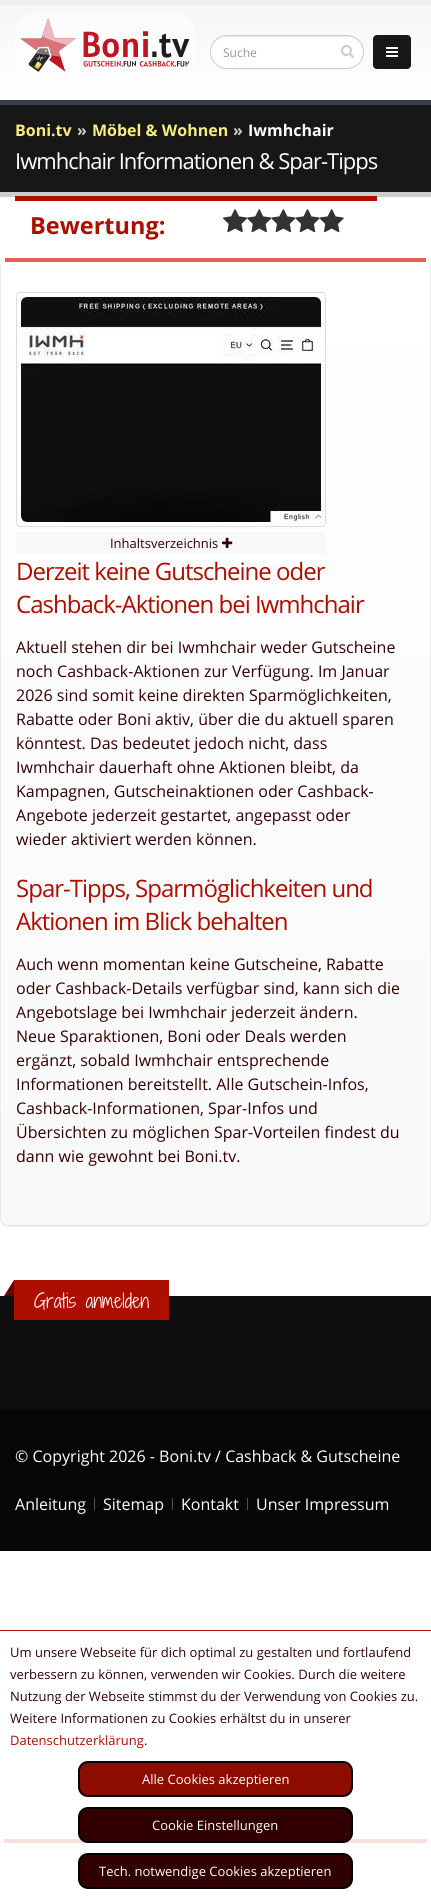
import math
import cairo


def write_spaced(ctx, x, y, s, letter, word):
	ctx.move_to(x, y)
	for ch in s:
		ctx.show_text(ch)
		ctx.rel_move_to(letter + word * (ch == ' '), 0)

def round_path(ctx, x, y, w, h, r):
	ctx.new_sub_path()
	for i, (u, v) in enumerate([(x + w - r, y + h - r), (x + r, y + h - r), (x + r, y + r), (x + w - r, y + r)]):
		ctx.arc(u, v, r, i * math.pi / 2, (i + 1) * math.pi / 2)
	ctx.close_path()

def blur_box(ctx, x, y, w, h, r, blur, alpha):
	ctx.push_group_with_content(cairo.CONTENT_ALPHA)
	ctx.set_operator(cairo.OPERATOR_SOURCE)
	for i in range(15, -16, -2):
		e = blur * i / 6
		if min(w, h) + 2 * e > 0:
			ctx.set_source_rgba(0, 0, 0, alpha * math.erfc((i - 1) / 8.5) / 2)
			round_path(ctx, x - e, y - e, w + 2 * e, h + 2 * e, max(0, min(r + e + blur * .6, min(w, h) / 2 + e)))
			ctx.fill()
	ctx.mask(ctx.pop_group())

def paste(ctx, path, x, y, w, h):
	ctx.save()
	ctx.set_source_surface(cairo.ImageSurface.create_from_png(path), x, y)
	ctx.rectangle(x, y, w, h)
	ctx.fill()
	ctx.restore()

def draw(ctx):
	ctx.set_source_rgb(1, 1, 1)
	ctx.paint()
	ctx.set_source_rgb(0.09, 0.09, 0.09)
	ctx.rectangle(0, 105, 431, 87)
	ctx.fill()
	ctx.set_source_rgb(0.22, 0.251, 0.271)
	ctx.rectangle(0, 100, 431, 5)
	ctx.fill()
	ctx.set_source_rgb(0, 0, 0)
	blur_box(ctx, 0, 0, 431, 100, 0, 1.5, 0.1)
	gradient = cairo.LinearGradient(216, 5, 216, 100)
	gradient.add_color_stop_rgba(0, 0.965, 0.965, 0.965, 1)
	gradient.add_color_stop_rgba(1, 1, 1, 1, 1)
	ctx.set_source(gradient)
	ctx.rectangle(0, 5, 431, 95)
	ctx.fill()
	ctx.set_source_rgb(0.929, 0.929, 0.929)
	ctx.rectangle(0, 0, 431, 5)
	ctx.fill()
	ctx.set_source_rgba(1, 1, 1, 0.53)
	round_path(ctx, 15, 13, 180, 64, 20)
	ctx.fill()
	paste(ctx, 'media/1.png', 20, 18, 170, 54)
	ctx.set_source_rgb(1, 1, 1)
	round_path(ctx, 210, 35, 154, 34, 17)
	ctx.fill()
	ctx.set_source_rgb(0.925, 0.925, 0.925)
	ctx.new_path()
	ctx.move_to(227, 37)
	ctx.line_to(347, 37)
	ctx.curve_to(356, 37, 363, 44, 363, 52)
	ctx.curve_to(363, 43, 356, 36, 347, 36)
	ctx.line_to(227, 36)
	ctx.curve_to(218, 36, 211, 43, 211, 52)
	ctx.curve_to(211, 44, 218, 37, 227, 37)
	ctx.close_path()
	ctx.fill()
	round_path(ctx, 210.5, 35.5, 153, 33, 16.5)
	ctx.set_source_rgb(0.8, 0.8, 0.8)
	ctx.set_line_width(1)
	ctx.stroke()
	ctx.select_font_face('Open Sans')
	ctx.set_font_size(12)
	ctx.set_source_rgb(0.6, 0.6, 0.6)
	ctx.move_to(223, 57)
	ctx.show_text('Suche')
	paste(ctx, 'media/2.png', 341, 45, 13, 13)
	ctx.set_source_rgb(0.09, 0.09, 0.09)
	round_path(ctx, 373, 35, 38, 34, 4)
	ctx.fill()
	paste(ctx, 'media/3.png', 386, 47, 12, 10)
	ctx.set_source_rgb(0.8, 0.8, 0.8)
	ctx.rectangle(0, 192, 431, 5)
	ctx.fill()
	ctx.select_font_face('Open Sans', cairo.FONT_SLANT_NORMAL, cairo.FONT_WEIGHT_BOLD)
	ctx.set_font_size(16)
	ctx.set_source_rgb(0.969, 0.922, 0.494)
	ctx.move_to(15, 136)
	ctx.show_text('Boni.tv')
	ctx.set_source_rgb(0.8, 0.8, 0.8)
	ctx.move_to(77, 136)
	ctx.show_text('»')
	ctx.set_source_rgb(0.969, 0.922, 0.494)
	ctx.move_to(92, 136)
	ctx.show_text('Möbel & Wohnen')
	ctx.set_source_rgb(0.8, 0.8, 0.8)
	ctx.move_to(233, 136)
	ctx.show_text('»')
	ctx.set_source_rgb(1, 1, 1)
	ctx.move_to(248, 136)
	ctx.show_text('Iwmhchair')
	ctx.set_source_rgb(0.675, 0.055, 0)
	ctx.rectangle(15, 196, 362, 5)
	ctx.fill()
	ctx.select_font_face('Open Sans')
	ctx.set_font_size(22)
	ctx.set_source_rgb(1, 1, 1)
	write_spaced(ctx, 15, 169, 'Iwmhchair Informationen & Spar-Tipps', -1, 0)
	ctx.select_font_face('Open Sans', cairo.FONT_SLANT_NORMAL, cairo.FONT_WEIGHT_BOLD)
	ctx.set_font_size(23.5)
	ctx.set_source_rgb(0.675, 0.055, 0)
	ctx.move_to(30, 234)
	ctx.show_text('Bewertung:')
	paste(ctx, 'media/4.png', 223, 209, 121, 24)
	ctx.set_source_rgb(0, 0, 0)
	blur_box(ctx, 0, 259, 431, 968, 8, 0.5, 0.04)
	ctx.save()
	round_path(ctx, 0, 258, 431, 968, 8)
	ctx.clip()
	gradient = cairo.LinearGradient(215, 258, 216, 1225)
	gradient.add_color_stop_rgba(0.01, 1, 1, 1, 1)
	gradient.add_color_stop_rgba(0.98, 0.976, 0.976, 0.976, 1)
	ctx.set_source(gradient)
	ctx.new_path()
	ctx.move_to(8, 258)
	ctx.line_to(423, 258)
	ctx.curve_to(427.5, 258, 431, 261.5, 431, 266)
	ctx.line_to(431, 1225)
	ctx.line_to(0, 1225)
	ctx.line_to(0, 266)
	ctx.curve_to(0, 261.5, 3.5, 258, 8, 258)
	ctx.close_path()
	ctx.fill()
	ctx.restore()
	ctx.set_source_rgb(0.925, 0.925, 0.925)
	ctx.new_path()
	ctx.move_to(431, 266)
	ctx.curve_to(431, 262, 427, 258, 423, 258)
	ctx.curve_to(427, 258, 430, 262, 430, 266)
	ctx.line_to(430, 1218)
	ctx.curve_to(430, 1220, 429, 1222, 428, 1223)
	ctx.line_to(428, 1224)
	ctx.curve_to(430, 1222, 431, 1220, 431, 1218)
	ctx.close_path()
	ctx.fill()
	ctx.set_source_rgb(0.875, 0.875, 0.875)
	ctx.new_path()
	ctx.move_to(8, 1226)
	ctx.line_to(423, 1226)
	ctx.curve_to(425, 1226, 427, 1225, 428, 1224)
	ctx.line_to(428, 1223)
	ctx.curve_to(427, 1224, 425, 1225, 423, 1225)
	ctx.line_to(8, 1225)
	ctx.curve_to(6, 1225, 4, 1224, 3, 1223)
	ctx.line_to(2, 1224)
	ctx.curve_to(4, 1225, 6, 1226, 8, 1226)
	ctx.close_path()
	ctx.fill()
	ctx.set_source_rgb(0.925, 0.925, 0.925)
	ctx.new_path()
	ctx.move_to(0, 266)
	ctx.line_to(0, 1218)
	ctx.curve_to(0, 1220, 1, 1222, 2, 1224)
	ctx.line_to(3, 1223)
	ctx.curve_to(2, 1222, 1, 1220, 1, 1218)
	ctx.line_to(1, 266)
	ctx.curve_to(1, 262, 4, 258, 8, 258)
	ctx.curve_to(4, 258, 0, 262, 0, 266)
	ctx.close_path()
	ctx.fill()
	ctx.set_source_rgb(0.89, 0.38, 0.349)
	ctx.rectangle(5, 258, 421, 4)
	ctx.fill()
	round_path(ctx, 16.5, 292.5, 309, 234, 3.5)
	ctx.set_source_rgb(0.867, 0.867, 0.867)
	ctx.stroke()
	paste(ctx, 'media/5.png', 21, 297, 300, 225)
	ctx.set_source_rgb(0.969, 0.969, 0.969)
	ctx.rectangle(16, 532, 310, 22)
	ctx.fill()
	ctx.select_font_face('Open Sans')
	ctx.set_font_size(13)
	ctx.set_source_rgb(0.192, 0, 0)
	ctx.move_to(110, 548)
	ctx.show_text('Inhaltsverzeichnis')
	paste(ctx, 'media/6.png', 222, 537, 11, 11)
	ctx.set_source_rgb(0.976, 0.875, 0.871)
	ctx.rectangle(4, 1839, 423, 4)
	ctx.fill()
	ctx.set_font_size(24)
	ctx.set_source_rgb(0.675, 0.055, 0)
	write_spaced(ctx, 16, 580, 'Derzeit keine Gutscheine oder', -1, 0)
	write_spaced(ctx, 16, 613, 'Cashback-Aktionen bei Iwmhchair', -1, 0)
	ctx.set_font_size(16)
	ctx.set_source_rgb(0.192, 0, 0)
	for x, y, s in [
		(16, 653, 'Aktuell stehen dir bei Iwmhchair weder Gutscheine'),
		(16, 677, 'noch Cashback-Aktionen zur Verfügung. Im Januar'),
		(16, 701, '2026 sind somit keine direkten Sparmöglichkeiten,'),
		(16, 725, 'Rabatte oder Boni aktiv, über die du aktuell sparen'),
		(16, 749, 'könntest. Das bedeutet jedoch nicht, dass'),
		(16, 773, 'Iwmhchair dauerhaft ohne Aktionen bleibt, da'),
		(16, 797, 'Kampagnen, Gutscheinaktionen oder Cashback-'),
		(16, 821, 'Angebote jederzeit gestartet, angepasst oder'),
		(16, 845, 'wieder aktiviert werden können.'),
	]:
		ctx.move_to(x, y)
		ctx.show_text(s)
	ctx.set_font_size(24)
	ctx.set_source_rgb(0.675, 0.055, 0)
	write_spaced(ctx, 16, 897, 'Spar-Tipps, Sparmöglichkeiten und', -1, 0)
	write_spaced(ctx, 16, 930, 'Aktionen im Blick behalten', -1, 0)
	ctx.set_font_size(16)
	ctx.set_source_rgb(0.192, 0, 0)
	for x, y, s in [
		(16, 970, 'Auch wenn momentan keine Gutscheine, Rabatte'),
		(16, 994, 'oder Cashback-Details verfügbar sind, kann sich die'),
		(16, 1018, 'Angebotslage bei Iwmhchair jederzeit ändern.'),
		(16, 1042, 'Neue Sparaktionen, Boni oder Deals werden'),
		(16, 1066, 'ergänzt, sobald Iwmhchair entsprechende'),
		(16, 1090, 'Informationen bereitstellt. Alle Gutschein-Infos,'),
		(16, 1114, 'Cashback-Informationen, Spar-Infos und'),
		(16, 1138, 'Übersichten zu möglichen Spar-Vorteilen findest du'),
		(16, 1162, 'dann wie gewohnt bei Boni.tv.'),
	]:
		ctx.move_to(x, y)
		ctx.show_text(s)
	ctx.set_source_rgb(0.055, 0.055, 0.055)
	ctx.rectangle(0, 1296, 431, 114)
	ctx.fill()
	ctx.set_source_rgb(0.675, 0.055, 0)
	ctx.rectangle(14, 1280, 155, 40)
	ctx.fill()
	ctx.set_source_rgb(0.376, 0.031, 0)
	ctx.new_path()
	ctx.move_to(14, 1280)
	ctx.line_to(14, 1296)
	ctx.line_to(4, 1296)
	ctx.close_path()
	ctx.fill()
	ctx.select_font_face('Shadows Into Light Two')
	ctx.set_font_size(18.75)
	ctx.set_source_rgb(1, 1, 1)
	ctx.move_to(34, 1308)
	ctx.show_text('Gratis anmelden')
	ctx.set_source_rgb(0.024, 0.024, 0.024)
	ctx.rectangle(0, 1410, 431, 141)
	ctx.fill()
	ctx.select_font_face('Open Sans')
	ctx.set_font_size(16)
	ctx.set_source_rgb(1, 1, 1)
	ctx.move_to(15, 1462)
	ctx.show_text('© Copyright 2026 - Boni.tv / Cashback & Gutscheine')
	ctx.move_to(15, 1510)
	ctx.show_text('Anleitung')
	ctx.set_source_rgb(0.314, 0.314, 0.314)
	ctx.rectangle(94, 1498, 1, 12)
	ctx.fill()
	ctx.set_source_rgb(1, 1, 1)
	ctx.move_to(103, 1510)
	ctx.show_text('Sitemap')
	ctx.set_source_rgb(0.314, 0.314, 0.314)
	ctx.rectangle(172, 1498, 1, 12)
	ctx.fill()
	ctx.set_source_rgb(1, 1, 1)
	ctx.move_to(181, 1510)
	ctx.show_text('Kontakt')
	ctx.set_source_rgb(0.314, 0.314, 0.314)
	ctx.rectangle(247, 1498, 1, 12)
	ctx.fill()
	ctx.set_source_rgb(1, 1, 1)
	ctx.move_to(256, 1510)
	ctx.show_text('Unser Impressum')
	ctx.set_source_rgb(0.675, 0.055, 0)
	ctx.rectangle(0, 1630, 431, 1)
	ctx.fill()
	ctx.set_font_size(13)
	ctx.set_source_rgb(0.192, 0, 0)
	for x, y, s in [
		(10, 1657, 'Um unsere Webseite für dich optimal zu gestalten und fortlaufend'),
		(10, 1679, 'verbessern zu können, verwenden wir Cookies. Durch die weitere'),
		(10, 1701, 'Nutzung der Webseite stimmst du der Verwendung von Cookies zu.'),
		(10, 1723, 'Weitere Informationen zu Cookies erhältst du in unserer'),
	]:
		ctx.move_to(x, y)
		ctx.show_text(s)
	ctx.set_source_rgb(0.675, 0.055, 0)
	ctx.move_to(10, 1745)
	ctx.show_text('Datenschutzerklärung')
	ctx.set_source_rgb(0.192, 0, 0)
	ctx.move_to(144, 1745)
	ctx.show_text('.')
	ctx.set_source_rgb(0.549, 0.047, 0)
	round_path(ctx, 79, 1762, 273, 34, 9)
	ctx.fill_preserve()
	ctx.set_source_rgb(0, 0, 0)
	ctx.set_line_width(2)
	ctx.stroke()
	ctx.set_source_rgb(1, 1, 1)
	ctx.move_to(142, 1784)
	ctx.show_text('Alle Cookies akzeptieren')
	ctx.set_source_rgb(0.192, 0, 0)
	round_path(ctx, 79, 1808, 273, 34, 9)
	ctx.fill_preserve()
	ctx.set_source_rgb(0, 0, 0)
	ctx.stroke()
	ctx.set_source_rgb(1, 1, 1)
	ctx.move_to(152, 1830)
	ctx.show_text('Cookie Einstellungen')
	ctx.set_source_rgb(0.192, 0, 0)
	round_path(ctx, 79, 1854, 273, 34, 9)
	ctx.fill_preserve()
	ctx.set_source_rgb(0, 0, 0)
	ctx.stroke()
	ctx.set_source_rgb(1, 1, 1)
	ctx.move_to(99, 1876)
	ctx.show_text('Tech. notwendige Cookies akzeptieren')


surface = cairo.ImageSurface(cairo.FORMAT_RGB24, 431, 1899)
ctx = cairo.Context(surface)
options = cairo.FontOptions()
options.set_hint_metrics(cairo.HINT_METRICS_OFF)
options.set_hint_style(cairo.HINT_STYLE_NONE)
ctx.set_font_options(options)
ctx.set_miter_limit(4)
draw(ctx)
surface.write_to_png('image.png')
